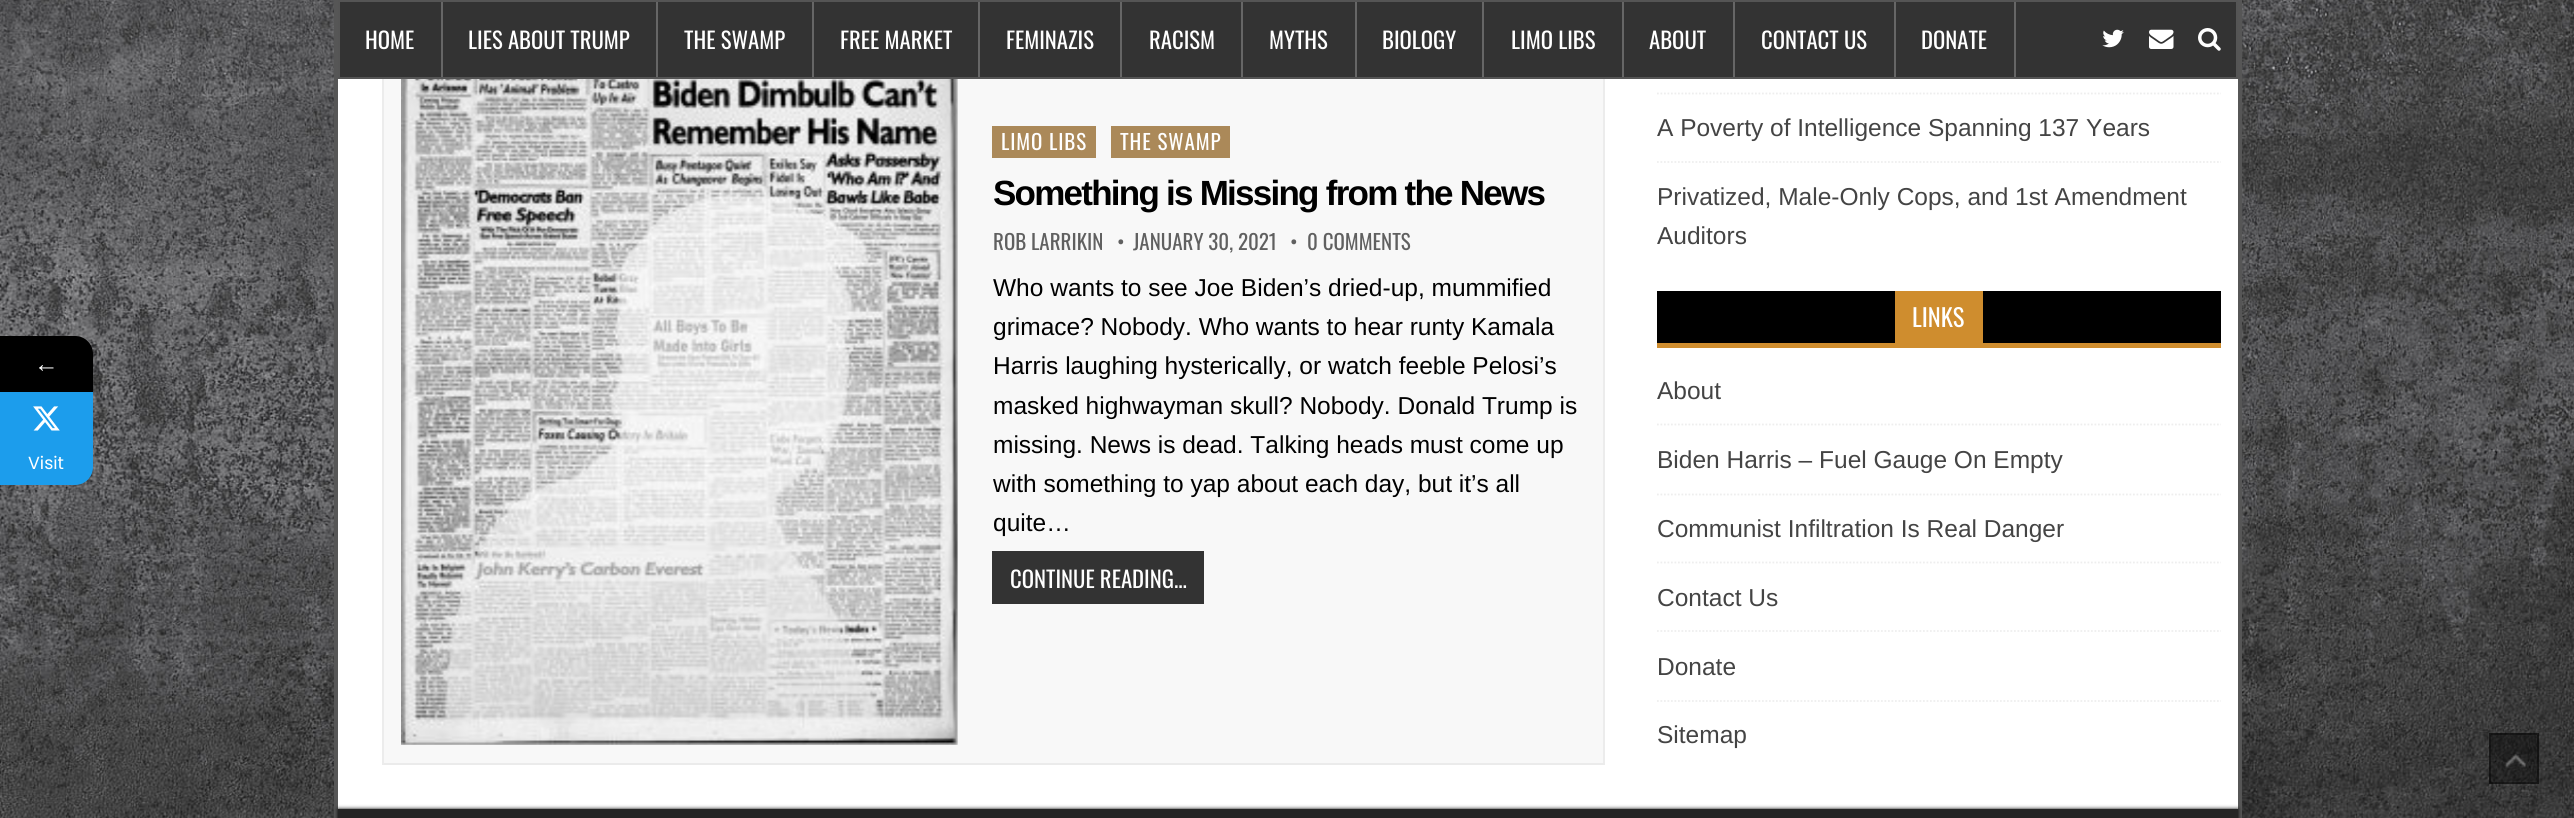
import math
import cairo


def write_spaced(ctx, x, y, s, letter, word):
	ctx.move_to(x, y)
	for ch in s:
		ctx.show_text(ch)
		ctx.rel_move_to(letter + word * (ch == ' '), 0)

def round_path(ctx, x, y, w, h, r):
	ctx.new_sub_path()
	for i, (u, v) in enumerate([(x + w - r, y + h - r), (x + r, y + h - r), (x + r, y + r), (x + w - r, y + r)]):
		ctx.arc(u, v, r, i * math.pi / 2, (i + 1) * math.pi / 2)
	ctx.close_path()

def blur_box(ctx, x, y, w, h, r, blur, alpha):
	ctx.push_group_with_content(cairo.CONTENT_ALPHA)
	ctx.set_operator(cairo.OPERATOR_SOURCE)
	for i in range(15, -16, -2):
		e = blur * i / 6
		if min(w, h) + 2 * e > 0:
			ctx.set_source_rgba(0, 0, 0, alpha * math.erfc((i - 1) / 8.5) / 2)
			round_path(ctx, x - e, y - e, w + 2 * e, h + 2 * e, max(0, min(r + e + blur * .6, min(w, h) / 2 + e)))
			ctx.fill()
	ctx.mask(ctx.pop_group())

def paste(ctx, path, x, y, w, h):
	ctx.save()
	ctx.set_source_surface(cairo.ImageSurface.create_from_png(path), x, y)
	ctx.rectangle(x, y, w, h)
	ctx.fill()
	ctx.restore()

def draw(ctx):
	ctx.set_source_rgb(1, 1, 1)
	ctx.paint()
	paste(ctx, 'media/1.png', 0, 0, 2574, 818)
	ctx.set_source_rgb(0, 0, 0)
	blur_box(ctx, 0, 341, 93, 56, 18, 5, 0.16)
	ctx.set_source_rgb(0, 0, 0)
	ctx.new_path()
	ctx.move_to(0, 336)
	ctx.line_to(75, 336)
	ctx.curve_to(85, 336, 93, 344, 93, 354)
	ctx.line_to(93, 392)
	ctx.line_to(0, 392)
	ctx.close_path()
	ctx.fill()
	ctx.select_font_face('Liberation Serif')
	ctx.set_font_size(24.5)
	ctx.set_source_rgb(1, 1, 1)
	ctx.move_to(34, 372)
	ctx.show_text('←')
	ctx.set_source_rgb(0.11, 0.616, 0.922)
	ctx.new_path()
	ctx.move_to(0, 392)
	ctx.line_to(93, 392)
	ctx.line_to(93, 467)
	ctx.curve_to(93, 477, 85, 485, 75, 485)
	ctx.line_to(0, 485)
	ctx.close_path()
	ctx.fill()
	paste(ctx, 'media/2.png', 33, 406, 27, 25)
	ctx.select_font_face('Poppins')
	ctx.set_font_size(17.5)
	ctx.set_source_rgb(1, 1, 1)
	ctx.move_to(28, 469)
	ctx.show_text('Visit')
	ctx.rectangle(335, -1, 1906, 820)
	ctx.set_source_rgb(0.337, 0.337, 0.337)
	ctx.stroke()
	ctx.rectangle(337, -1, 1902, 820)
	ctx.stroke()
	ctx.set_source_rgb(0.2, 0.2, 0.2)
	ctx.rectangle(339, 1, 1898, 77)
	ctx.fill_preserve()
	ctx.set_source_rgb(0.333, 0.333, 0.333)
	ctx.stroke()
	ctx.set_source_rgb(0.4, 0.4, 0.4)
	ctx.rectangle(441, 2, 2, 75)
	ctx.fill()
	ctx.select_font_face('Oswald')
	ctx.set_font_size(22.75)
	ctx.set_source_rgb(1, 1, 1)
	ctx.move_to(365, 49)
	ctx.show_text('HOME')
	ctx.set_source_rgb(0.4, 0.4, 0.4)
	ctx.rectangle(656, 2, 2, 75)
	ctx.fill()
	ctx.set_source_rgb(1, 1, 1)
	ctx.move_to(468, 49)
	ctx.show_text('LIES ABOUT TRUMP')
	ctx.set_source_rgb(0.4, 0.4, 0.4)
	ctx.rectangle(812, 2, 2, 75)
	ctx.fill()
	ctx.set_source_rgb(1, 1, 1)
	ctx.move_to(684, 49)
	ctx.show_text('THE SWAMP')
	ctx.set_source_rgb(0.4, 0.4, 0.4)
	ctx.rectangle(978, 2, 2, 75)
	ctx.fill()
	ctx.set_source_rgb(1, 1, 1)
	ctx.move_to(840, 49)
	ctx.show_text('FREE MARKET')
	ctx.set_source_rgb(0.4, 0.4, 0.4)
	ctx.rectangle(1120, 2, 2, 75)
	ctx.fill()
	ctx.set_source_rgb(1, 1, 1)
	ctx.move_to(1006, 49)
	ctx.show_text('FEMINAZIS')
	ctx.set_source_rgb(0.4, 0.4, 0.4)
	ctx.rectangle(1241, 2, 2, 75)
	ctx.fill()
	ctx.set_source_rgb(1, 1, 1)
	ctx.move_to(1149, 49)
	ctx.show_text('RACISM')
	ctx.set_source_rgb(0.4, 0.4, 0.4)
	ctx.rectangle(1355, 2, 2, 75)
	ctx.fill()
	ctx.set_source_rgb(1, 1, 1)
	ctx.move_to(1269, 49)
	ctx.show_text('MYTHS')
	ctx.set_source_rgb(0.4, 0.4, 0.4)
	ctx.rectangle(1482, 2, 2, 75)
	ctx.fill()
	ctx.set_source_rgb(1, 1, 1)
	ctx.move_to(1382, 49)
	ctx.show_text('BIOLOGY')
	ctx.set_source_rgb(0.4, 0.4, 0.4)
	ctx.rectangle(1622, 2, 2, 75)
	ctx.fill()
	ctx.set_source_rgb(1, 1, 1)
	ctx.move_to(1511, 49)
	ctx.show_text('LIMO LIBS')
	ctx.set_source_rgb(0.4, 0.4, 0.4)
	ctx.rectangle(1733, 2, 2, 75)
	ctx.fill()
	ctx.set_source_rgb(1, 1, 1)
	ctx.move_to(1649, 49)
	ctx.show_text('ABOUT')
	ctx.set_source_rgb(0.4, 0.4, 0.4)
	ctx.rectangle(1894, 2, 2, 75)
	ctx.fill()
	ctx.set_source_rgb(1, 1, 1)
	ctx.move_to(1761, 49)
	ctx.show_text('CONTACT US')
	ctx.set_source_rgb(0.4, 0.4, 0.4)
	ctx.rectangle(2014, 2, 2, 75)
	ctx.fill()
	ctx.set_source_rgb(1, 1, 1)
	ctx.move_to(1921, 49)
	ctx.show_text('DONATE')
	paste(ctx, 'media/3.png', 2102, 29, 22, 19)
	paste(ctx, 'media/4.png', 2149, 29, 25, 20)
	paste(ctx, 'media/5.png', 2198, 28, 23, 23)
	ctx.rectangle(338, 79, 1900, 730)
	ctx.fill()
	ctx.set_source_rgb(0.969, 0.969, 0.969)
	ctx.rectangle(384, 79, 1219, 684)
	ctx.fill()
	ctx.set_source_rgb(0.925, 0.925, 0.925)
	ctx.rectangle(1603, 79, 2, 686)
	ctx.fill()
	ctx.set_source_rgb(0.918, 0.918, 0.918)
	ctx.rectangle(382, 763, 1223, 2)
	ctx.fill()
	ctx.set_source_rgb(0.925, 0.925, 0.925)
	ctx.rectangle(382, 79, 2, 686)
	ctx.fill()
	paste(ctx, 'media/6.png', 401, 79, 557, 666)
	ctx.set_source_rgb(0.671, 0.537, 0.349)
	ctx.rectangle(992, 126, 104, 32)
	ctx.fill()
	ctx.set_font_size(21)
	ctx.set_source_rgb(1, 1, 1)
	write_spaced(ctx, 1001, 150, 'LIMO LIBS', 0.9, 0)
	ctx.set_source_rgb(0.671, 0.537, 0.349)
	ctx.rectangle(1111, 126, 119, 32)
	ctx.fill()
	ctx.set_source_rgb(1, 1, 1)
	write_spaced(ctx, 1120, 150, 'THE SWAMP', 0.9, 0)
	ctx.select_font_face('Liberation Sans', cairo.FONT_SLANT_NORMAL, cairo.FONT_WEIGHT_BOLD)
	ctx.set_font_size(35)
	ctx.set_source_rgb(0, 0, 0)
	write_spaced(ctx, 993, 205, 'Something is Missing from the News', -1.75, 0)
	ctx.select_font_face('Oswald')
	ctx.set_font_size(21)
	ctx.set_source_rgb(0.376, 0.376, 0.376)
	for x, y, s in [
		(993, 250, 'ROB LARRIKIN'),
		(1117, 250, '•'),
		(1133, 250, 'JANUARY 30, 2021'),
		(1290, 250, '•'),
		(1307, 250, '0 COMMENTS'),
	]:
		ctx.move_to(x, y)
		ctx.show_text(s)
	ctx.select_font_face('Liberation Sans')
	ctx.set_font_size(24.5)
	ctx.set_source_rgb(0, 0, 0)
	for x, y, s in [
		(993, 296, 'Who wants to see Joe Biden’s dried-up, mummified'),
		(993, 335, 'grimace? Nobody. Who wants to hear runty Kamala'),
		(993, 374, 'Harris laughing hysterically, or watch feeble Pelosi’s'),
		(993, 414, 'masked highwayman skull? Nobody. Donald Trump is'),
		(993, 453, 'missing. News is dead. Talking heads must come up'),
		(993, 492, 'with something to yap about each day, but it’s all'),
		(993, 531, 'quite…'),
	]:
		ctx.move_to(x, y)
		ctx.show_text(s)
	ctx.set_source_rgb(0.2, 0.2, 0.2)
	ctx.rectangle(992, 551, 212, 53)
	ctx.fill()
	ctx.select_font_face('Oswald')
	ctx.set_font_size(22.75)
	ctx.set_source_rgb(1, 1, 1)
	ctx.move_to(1010, 588)
	ctx.show_text('CONTINUE READING...')
	ctx.new_path()
	ctx.move_to(1657, 93.5)
	ctx.line_to(2221, 93.5)
	ctx.set_source_rgb(0.933, 0.933, 0.933)
	ctx.set_line_width(1.8)
	ctx.set_dash([1.75, 1.75])
	ctx.stroke()
	ctx.new_path()
	ctx.move_to(1657, 162)
	ctx.line_to(2221, 162)
	ctx.stroke()
	ctx.select_font_face('Liberation Sans')
	ctx.set_font_size(24.5)
	ctx.set_source_rgb(0.267, 0.267, 0.267)
	for x, y, s in [
		(1657, 136, 'A Poverty of Intelligence Spanning 137 Years'),
		(1657, 205, 'Privatized, Male-Only Cops, and 1st Amendment'),
		(1657, 244, 'Auditors'),
	]:
		ctx.move_to(x, y)
		ctx.show_text(s)
	ctx.set_source_rgb(0, 0, 0)
	ctx.rectangle(1657, 291, 564, 52)
	ctx.fill()
	ctx.set_source_rgb(0.812, 0.553, 0.18)
	ctx.rectangle(1657, 343, 564, 5)
	ctx.rectangle(1895, 291, 88, 52)
	ctx.fill()
	ctx.select_font_face('Oswald')
	ctx.set_source_rgb(1, 1, 1)
	ctx.move_to(1912, 327)
	ctx.show_text('LINKS')
	ctx.new_path()
	ctx.move_to(1657, 424.5)
	ctx.line_to(2221, 424.5)
	ctx.set_source_rgb(0.933, 0.933, 0.933)
	ctx.stroke()
	ctx.select_font_face('Liberation Sans')
	ctx.set_source_rgb(0.267, 0.267, 0.267)
	ctx.move_to(1657, 399)
	ctx.show_text('About')
	ctx.new_path()
	ctx.move_to(1657, 494.5)
	ctx.line_to(2221, 494.5)
	ctx.set_source_rgb(0.933, 0.933, 0.933)
	ctx.stroke()
	ctx.set_source_rgb(0.267, 0.267, 0.267)
	ctx.move_to(1657, 468)
	ctx.show_text('Biden Harris – Fuel Gauge On Empty')
	ctx.new_path()
	ctx.move_to(1657, 562.5)
	ctx.line_to(2221, 562.5)
	ctx.set_source_rgb(0.933, 0.933, 0.933)
	ctx.stroke()
	ctx.set_source_rgb(0.267, 0.267, 0.267)
	ctx.move_to(1657, 537)
	ctx.show_text('Communist Infiltration Is Real Danger')
	ctx.new_path()
	ctx.move_to(1657, 631)
	ctx.line_to(2221, 631)
	ctx.set_source_rgb(0.933, 0.933, 0.933)
	ctx.stroke()
	ctx.set_source_rgb(0.267, 0.267, 0.267)
	ctx.move_to(1657, 606)
	ctx.show_text('Contact Us')
	ctx.new_path()
	ctx.move_to(1657, 701)
	ctx.line_to(2221, 701)
	ctx.set_source_rgb(0.933, 0.933, 0.933)
	ctx.stroke()
	ctx.set_source_rgb(0.267, 0.267, 0.267)
	ctx.move_to(1657, 675)
	ctx.show_text('Donate')
	ctx.move_to(1657, 743)
	ctx.show_text('Sitemap')
	ctx.set_source_rgb(0, 0, 0)
	blur_box(ctx, 338, 809, 1900, 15, 0, 2, 1)
	ctx.set_source_rgb(0.145, 0.145, 0.145)
	ctx.rectangle(338, 809, 1900, 9)
	ctx.fill()
	ctx.set_source_rgba(0, 0, 0, 0.4)
	ctx.rectangle(2489, 733, 50, 51)
	ctx.fill()
	paste(ctx, 'media/7.png', 2505, 753, 22, 15)
	ctx.rectangle(2490, 734, 48, 49)
	ctx.set_line_width(2)
	ctx.set_dash([])
	ctx.stroke()


surface = cairo.ImageSurface(cairo.FORMAT_RGB24, 2574, 818)
ctx = cairo.Context(surface)
options = cairo.FontOptions()
options.set_hint_metrics(cairo.HINT_METRICS_OFF)
options.set_hint_style(cairo.HINT_STYLE_NONE)
ctx.set_font_options(options)
ctx.set_miter_limit(4)
draw(ctx)
surface.write_to_png('image.png')
